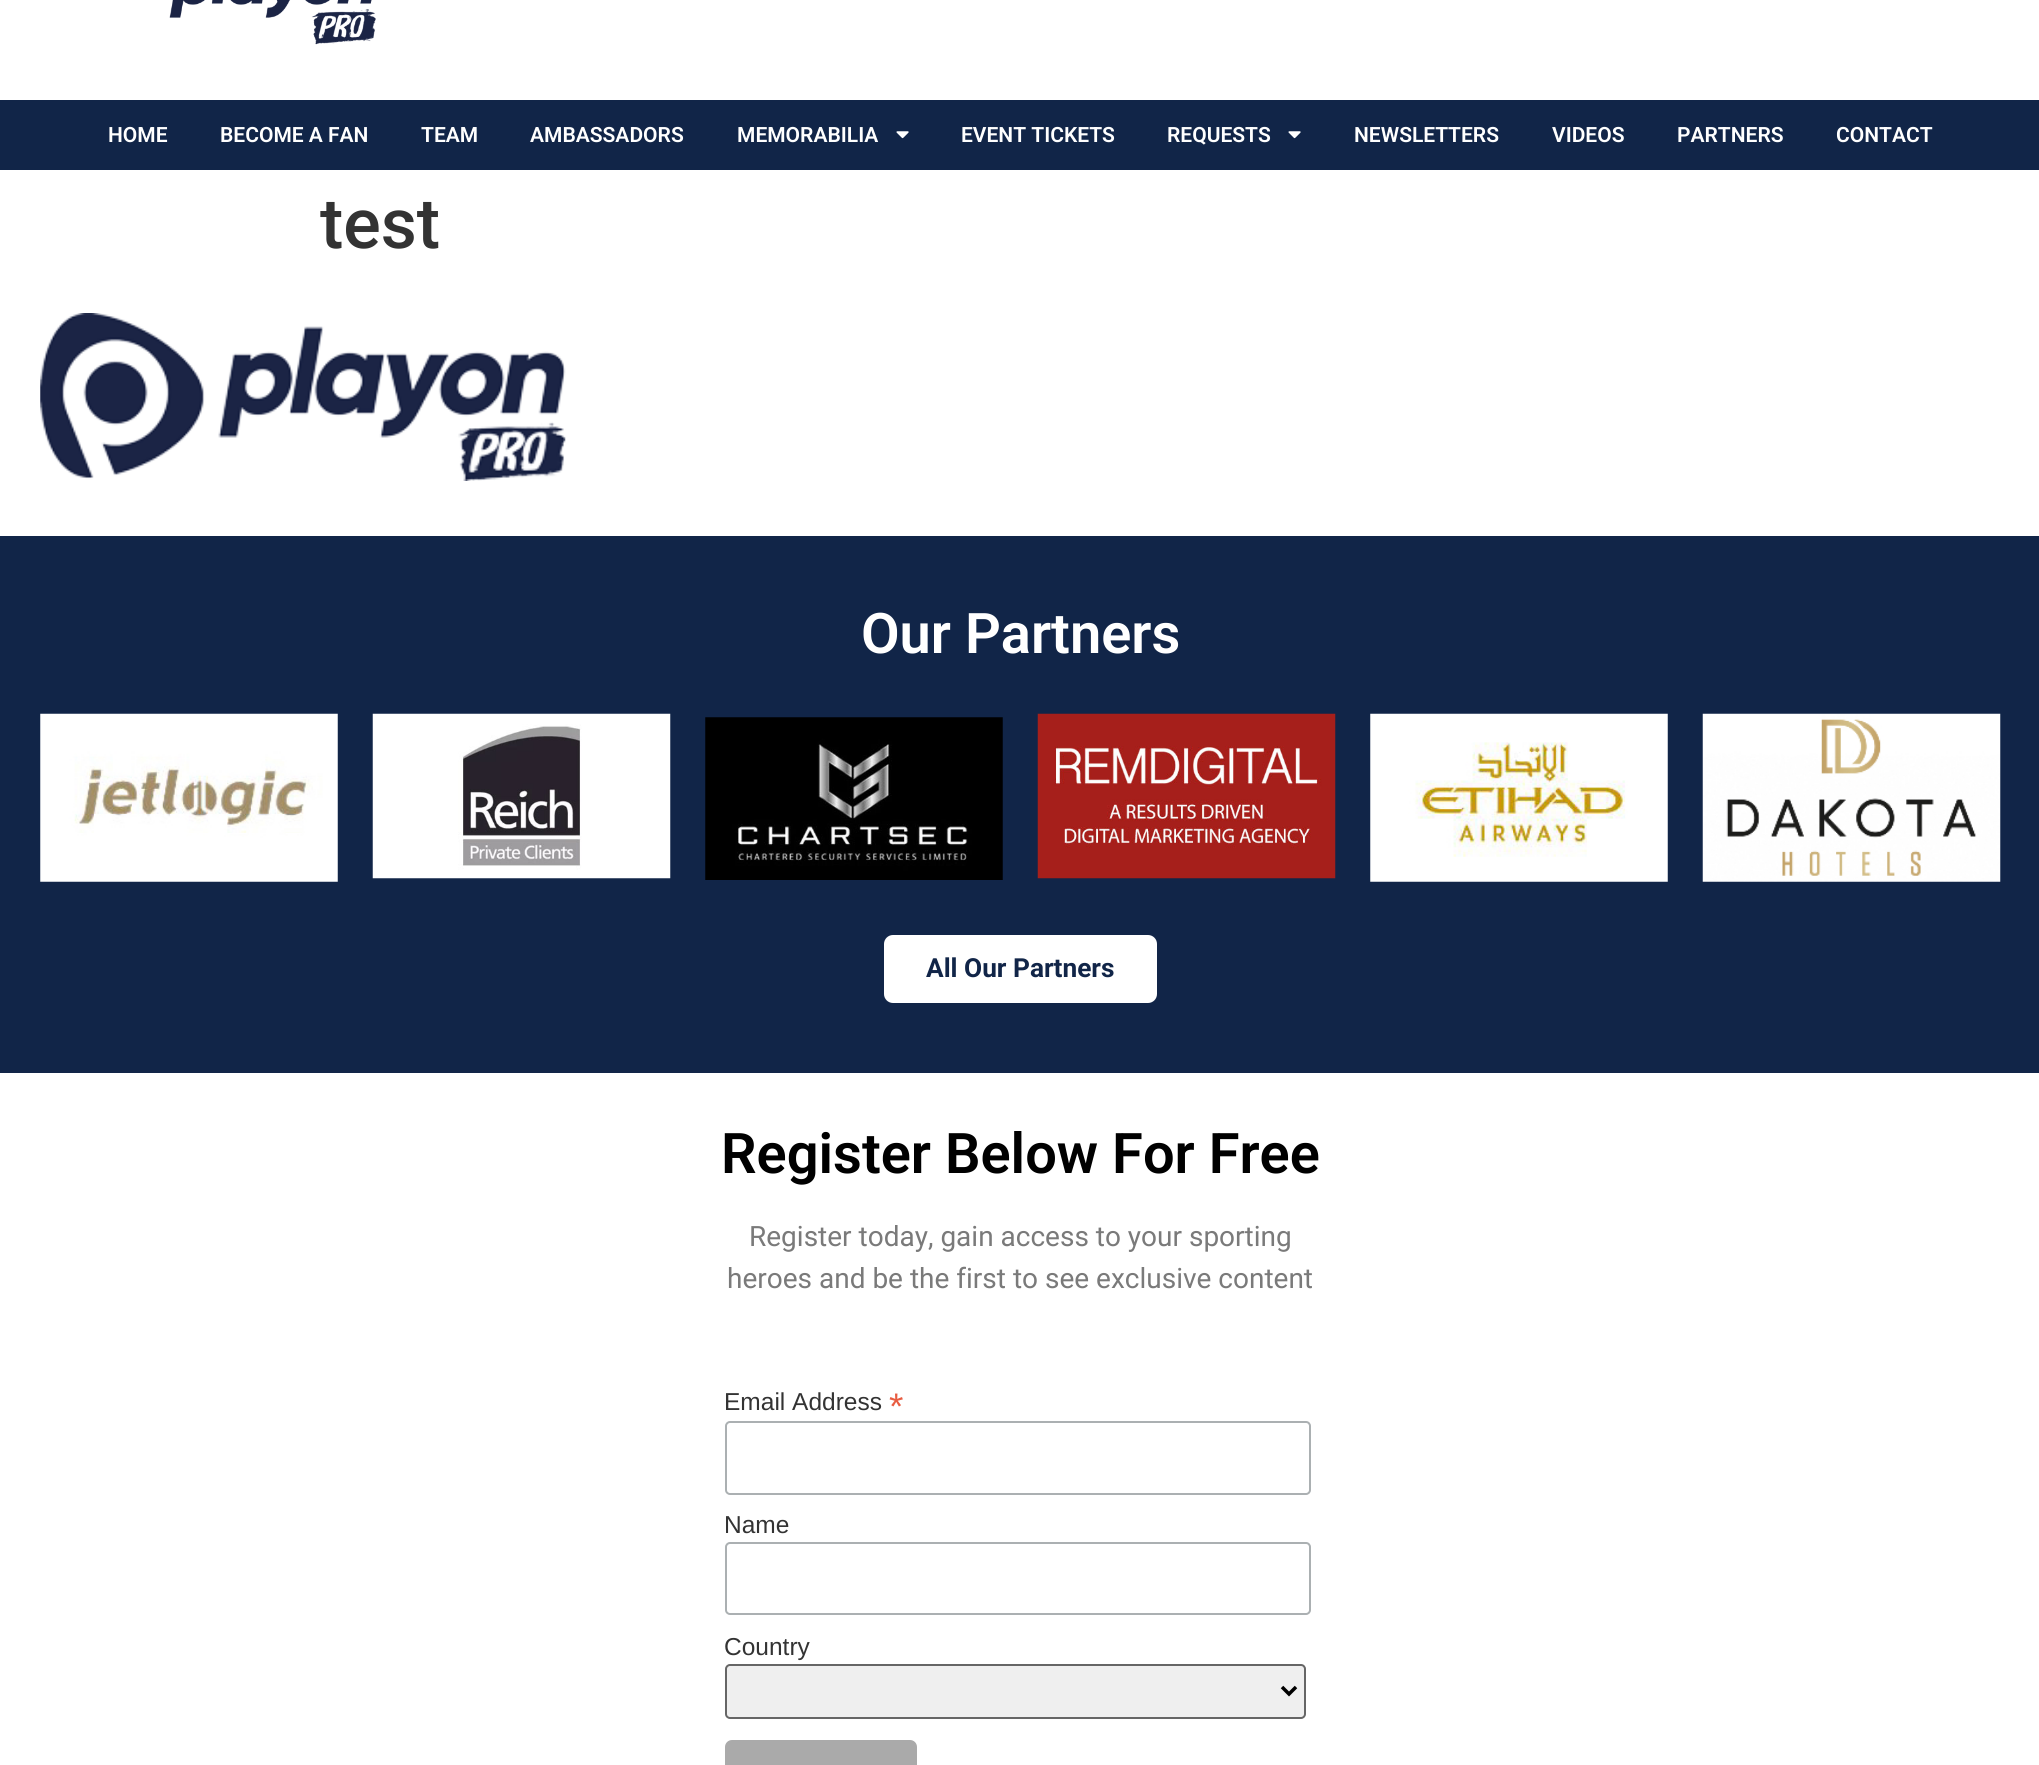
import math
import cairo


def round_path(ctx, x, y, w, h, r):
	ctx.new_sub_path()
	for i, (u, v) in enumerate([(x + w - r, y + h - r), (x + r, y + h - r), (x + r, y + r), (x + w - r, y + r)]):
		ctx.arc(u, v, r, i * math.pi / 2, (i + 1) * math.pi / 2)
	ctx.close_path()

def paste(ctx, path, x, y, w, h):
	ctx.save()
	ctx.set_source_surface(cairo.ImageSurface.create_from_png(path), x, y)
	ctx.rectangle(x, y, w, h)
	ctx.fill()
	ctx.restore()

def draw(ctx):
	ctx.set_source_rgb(1, 1, 1)
	ctx.paint()
	paste(ctx, 'media/1.png', 169, 0, 207, 45)
	ctx.set_source_rgb(0.067, 0.145, 0.282)
	ctx.rectangle(0, 100, 2039, 70)
	ctx.fill()
	ctx.select_font_face('Roboto SemiBold')
	ctx.set_font_size(21)
	ctx.set_source_rgb(1, 1, 1)
	for x, y, s in [
		(108, 142, 'HOME'),
		(220, 142, 'BECOME A FAN'),
		(421, 142, 'TEAM'),
		(530, 142, 'AMBASSADORS'),
		(737, 142, 'MEMORABILIA'),
	]:
		ctx.move_to(x, y)
		ctx.show_text(s)
	paste(ctx, 'media/2.png', 896, 131, 13, 8)
	ctx.move_to(961, 142)
	ctx.show_text('EVENT TICKETS')
	ctx.move_to(1167, 142)
	ctx.show_text('REQUESTS')
	paste(ctx, 'media/2.png', 1288, 131, 13, 8)
	for x, y, s in [
		(1354, 142, 'NEWSLETTERS'),
		(1552, 142, 'VIDEOS'),
		(1677, 142, 'PARTNERS'),
		(1836, 142, 'CONTACT'),
	]:
		ctx.move_to(x, y)
		ctx.show_text(s)
	ctx.select_font_face('Roboto Medium')
	ctx.set_font_size(70)
	ctx.set_source_rgb(0.2, 0.2, 0.2)
	ctx.move_to(320, 248)
	ctx.show_text('test')
	paste(ctx, 'media/3.png', 40, 313, 526, 168)
	ctx.set_source_rgb(0.067, 0.145, 0.282)
	ctx.rectangle(0, 536, 2039, 537)
	ctx.fill()
	ctx.select_font_face('Roboto SemiBold')
	ctx.set_font_size(56)
	ctx.set_source_rgb(1, 1, 1)
	ctx.move_to(861, 653)
	ctx.show_text('Our Partners')
	paste(ctx, 'media/4.png', 40, 713, 298, 169)
	paste(ctx, 'media/5.png', 372, 713, 299, 166)
	paste(ctx, 'media/6.png', 705, 717, 298, 163)
	paste(ctx, 'media/7.png', 1037, 713, 299, 166)
	paste(ctx, 'media/8.png', 1370, 713, 298, 169)
	paste(ctx, 'media/9.png', 1702, 713, 299, 169)
	round_path(ctx, 884, 935, 273, 68, 9)
	ctx.fill()
	ctx.select_font_face('Roboto', cairo.FONT_SLANT_NORMAL, cairo.FONT_WEIGHT_BOLD)
	ctx.set_font_size(26.25)
	ctx.set_source_rgb(0.067, 0.145, 0.282)
	ctx.move_to(926, 977)
	ctx.show_text('All Our Partners')
	ctx.select_font_face('Roboto SemiBold')
	ctx.set_font_size(56)
	ctx.set_source_rgb(0, 0, 0)
	ctx.move_to(721, 1173)
	ctx.show_text('Register Below For Free')
	ctx.select_font_face('Roboto')
	ctx.set_font_size(28)
	ctx.set_source_rgb(0.478, 0.478, 0.478)
	ctx.move_to(749, 1246)
	ctx.show_text('Register today, gain access to your sporting')
	ctx.move_to(727, 1288)
	ctx.show_text('heroes and be the first to see exclusive content')
	ctx.select_font_face('Liberation Sans')
	ctx.set_font_size(24.5)
	ctx.set_source_rgb(0.2, 0.2, 0.2)
	ctx.move_to(724, 1410)
	ctx.show_text('Email Address')
	ctx.set_font_size(37)
	ctx.set_source_rgb(0.91, 0.361, 0.255)
	ctx.move_to(889, 1419)
	ctx.show_text('*')
	round_path(ctx, 726, 1422, 584, 72, 4)
	ctx.set_source_rgb(0.671, 0.69, 0.698)
	ctx.stroke()
	ctx.set_font_size(24.5)
	ctx.set_source_rgb(0.2, 0.2, 0.2)
	ctx.move_to(724, 1533)
	ctx.show_text('Name')
	round_path(ctx, 726, 1543, 584, 71, 4)
	ctx.set_source_rgb(0.671, 0.69, 0.698)
	ctx.stroke()
	ctx.set_source_rgb(0.2, 0.2, 0.2)
	ctx.move_to(724, 1655)
	ctx.show_text('Country')
	ctx.set_source_rgb(0.937, 0.937, 0.937)
	round_path(ctx, 726, 1665, 579, 53, 4)
	ctx.fill_preserve()
	ctx.set_source_rgb(0.4, 0.4, 0.4)
	ctx.stroke()
	ctx.new_path()
	ctx.move_to(1282, 1687)
	ctx.line_to(1289, 1694)
	ctx.line_to(1296, 1687)
	ctx.set_source_rgb(0, 0, 0)
	ctx.set_line_width(3.5)
	ctx.stroke()
	ctx.set_source_rgb(0.667, 0.667, 0.667)
	round_path(ctx, 725, 1740, 192, 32, 7)
	ctx.fill()


surface = cairo.ImageSurface(cairo.FORMAT_RGB24, 2039, 1765)
ctx = cairo.Context(surface)
options = cairo.FontOptions()
options.set_hint_metrics(cairo.HINT_METRICS_OFF)
options.set_hint_style(cairo.HINT_STYLE_NONE)
ctx.set_font_options(options)
ctx.set_miter_limit(4)
draw(ctx)
surface.write_to_png('image.png')
